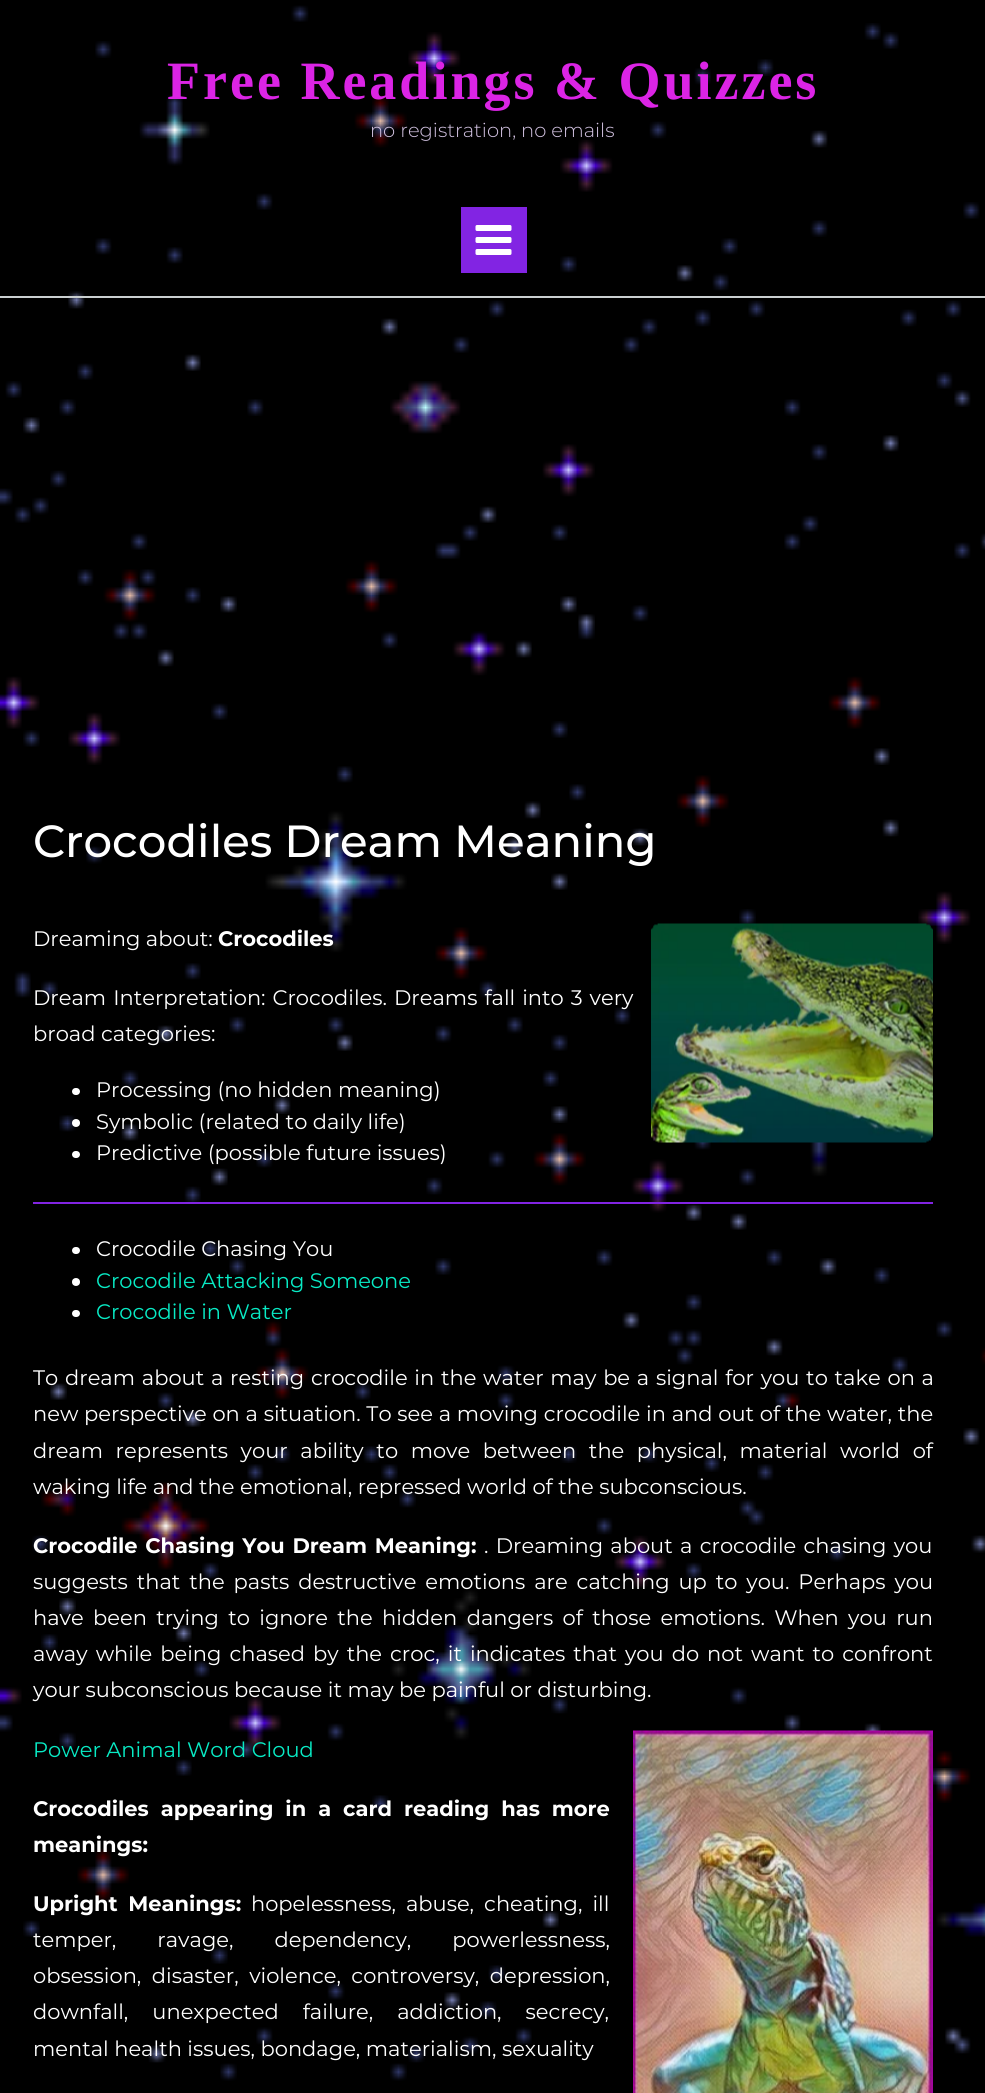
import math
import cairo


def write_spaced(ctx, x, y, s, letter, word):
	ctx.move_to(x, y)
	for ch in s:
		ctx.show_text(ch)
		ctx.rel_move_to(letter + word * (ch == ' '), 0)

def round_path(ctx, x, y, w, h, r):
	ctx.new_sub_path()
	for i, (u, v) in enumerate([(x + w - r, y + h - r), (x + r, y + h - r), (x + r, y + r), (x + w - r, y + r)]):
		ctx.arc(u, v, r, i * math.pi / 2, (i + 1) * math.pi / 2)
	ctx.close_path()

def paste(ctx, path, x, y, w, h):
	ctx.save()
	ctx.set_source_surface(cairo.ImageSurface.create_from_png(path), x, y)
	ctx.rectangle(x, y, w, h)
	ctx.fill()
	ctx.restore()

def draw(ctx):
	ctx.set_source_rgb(0, 0, 0)
	ctx.paint()
	paste(ctx, 'media/1.png', 0, 5, 985, 2085)
	ctx.set_source_rgb(0.792, 0.812, 0.816)
	ctx.rectangle(0, 296, 985, 2)
	ctx.fill()
	ctx.select_font_face('Liberation Serif', cairo.FONT_SLANT_NORMAL, cairo.FONT_WEIGHT_BOLD)
	ctx.set_font_size(54)
	ctx.set_source_rgb(0.859, 0.141, 0.898)
	write_spaced(ctx, 167, 99, 'Free Readings & Quizzes', 3, 0)
	ctx.select_font_face('Montserrat Light')
	ctx.set_font_size(19.5)
	ctx.set_source_rgb(0.827, 0.765, 0.886)
	ctx.move_to(370, 137)
	ctx.show_text('no registration, no emails')
	ctx.set_source_rgb(0.51, 0.141, 0.89)
	ctx.rectangle(461, 207, 66, 66)
	ctx.fill()
	paste(ctx, 'media/2.png', 475, 225, 37, 30)
	ctx.select_font_face('Montserrat Medium')
	ctx.set_font_size(45)
	ctx.set_source_rgb(1, 1, 1)
	ctx.move_to(33, 857)
	ctx.show_text('Crocodiles Dream Meaning')
	ctx.select_font_face('Montserrat')
	ctx.set_font_size(21)
	ctx.move_to(33, 946)
	ctx.show_text('Dreaming about:')
	ctx.select_font_face('Montserrat', cairo.FONT_SLANT_NORMAL, cairo.FONT_WEIGHT_BOLD)
	ctx.move_to(218, 946)
	ctx.show_text('Crocodiles')
	paste(ctx, 'media/3.png', 651, 923, 282, 220)
	ctx.select_font_face('Montserrat')
	write_spaced(ctx, 33, 1005, 'Dream Interpretation: Crocodiles.', 0, 1.5)
	write_spaced(ctx, 394, 1005, 'Dreams fall into 3 very', 0, 1.5)
	ctx.move_to(33, 1041)
	ctx.show_text('broad categories:')
	round_path(ctx, 72, 1088, 8, 7, 3.5)
	ctx.fill()
	ctx.move_to(96, 1097)
	ctx.show_text('Processing (no hidden meaning)')
	ctx.new_path()
	ctx.arc(76, 1123, 4, 0, 2 * math.pi)
	ctx.fill()
	ctx.move_to(96, 1129)
	ctx.show_text('Symbolic (related to daily life)')
	round_path(ctx, 72, 1151, 8, 7, 3.5)
	ctx.fill()
	ctx.move_to(96, 1160)
	ctx.show_text('Predictive (possible future issues)')
	ctx.set_source_rgb(0.51, 0.141, 0.89)
	ctx.rectangle(33, 1202, 900, 2)
	ctx.fill()
	ctx.set_source_rgb(1, 1, 1)
	round_path(ctx, 72, 1247, 8, 7, 3.5)
	ctx.fill()
	ctx.move_to(96, 1256)
	ctx.show_text('Crocodile Chasing You')
	ctx.new_path()
	ctx.arc(76, 1282, 4, 0, 2 * math.pi)
	ctx.fill()
	ctx.set_source_rgb(0.035, 0.918, 0.773)
	ctx.move_to(96, 1288)
	ctx.show_text('Crocodile Attacking Someone')
	ctx.set_source_rgb(1, 1, 1)
	round_path(ctx, 72, 1310, 8, 7, 3.5)
	ctx.fill()
	ctx.set_source_rgb(0.035, 0.918, 0.773)
	ctx.move_to(96, 1319)
	ctx.show_text('Crocodile in Water')
	ctx.set_source_rgb(1, 1, 1)
	write_spaced(ctx, 33, 1385, 'To dream about a resting crocodile in the water may be a signal for you to take on a', 0, 1.25)
	write_spaced(ctx, 33, 1421, 'new perspective on a situation. To see a moving crocodile in and out of the water, the', 0, 0.25)
	write_spaced(ctx, 33, 1458, 'dream represents your ability to move between the physical, material world of', 0, 7.1)
	ctx.move_to(33, 1494)
	ctx.show_text('waking life and the emotional, repressed world of the subconscious.')
	ctx.select_font_face('Montserrat', cairo.FONT_SLANT_NORMAL, cairo.FONT_WEIGHT_BOLD)
	write_spaced(ctx, 33, 1553, 'Crocodile Chasing You Dream Meaning:', 0, 1.75)
	ctx.select_font_face('Montserrat')
	write_spaced(ctx, 484, 1553, '. Dreaming about a crocodile chasing you', 0, 1.75)
	write_spaced(ctx, 33, 1589, 'suggests that the pasts destructive emotions are catching up to you. Perhaps you', 0, 3.4)
	write_spaced(ctx, 33, 1625, 'have been trying to ignore the hidden dangers of those emotions. When you run', 0, 3.9)
	write_spaced(ctx, 33, 1661, 'away while being chased by the croc, it indicates that you do not want to confront', 0, 2.5)
	ctx.move_to(33, 1697)
	ctx.show_text('your subconscious because it may be painful or disturbing.')
	ctx.set_source_rgb(0.035, 0.918, 0.773)
	ctx.move_to(33, 1757)
	ctx.show_text('Power Animal Word Cloud')
	paste(ctx, 'media/4.png', 633, 1730, 300, 363)
	ctx.select_font_face('Montserrat', cairo.FONT_SLANT_NORMAL, cairo.FONT_WEIGHT_BOLD)
	ctx.set_source_rgb(1, 1, 1)
	write_spaced(ctx, 33, 1816, 'Crocodiles appearing in a card reading has more', 0, 6)
	ctx.move_to(33, 1852)
	ctx.show_text('meanings:')
	write_spaced(ctx, 33, 1911, 'Upright Meanings:', 0, 4.5)
	ctx.select_font_face('Montserrat')
	write_spaced(ctx, 251, 1911, 'hopelessness, abuse, cheating, ill', 0, 4.5)
	write_spaced(ctx, 33, 1947, 'temper, ravage, dependency, powerlessness,', 0, 35.5)
	write_spaced(ctx, 33, 1983, 'obsession, disaster, violence, controversy, depression,', 0, 5)
	write_spaced(ctx, 33, 2019, 'downfall, unexpected failure, addiction, secrecy,', 0, 18.5)
	ctx.move_to(33, 2056)
	ctx.show_text('mental health issues, bondage, materialism, sexuality')


surface = cairo.ImageSurface(cairo.FORMAT_RGB24, 985, 2093)
ctx = cairo.Context(surface)
options = cairo.FontOptions()
options.set_hint_metrics(cairo.HINT_METRICS_OFF)
options.set_hint_style(cairo.HINT_STYLE_NONE)
ctx.set_font_options(options)
ctx.set_miter_limit(4)
draw(ctx)
surface.write_to_png('image.png')
